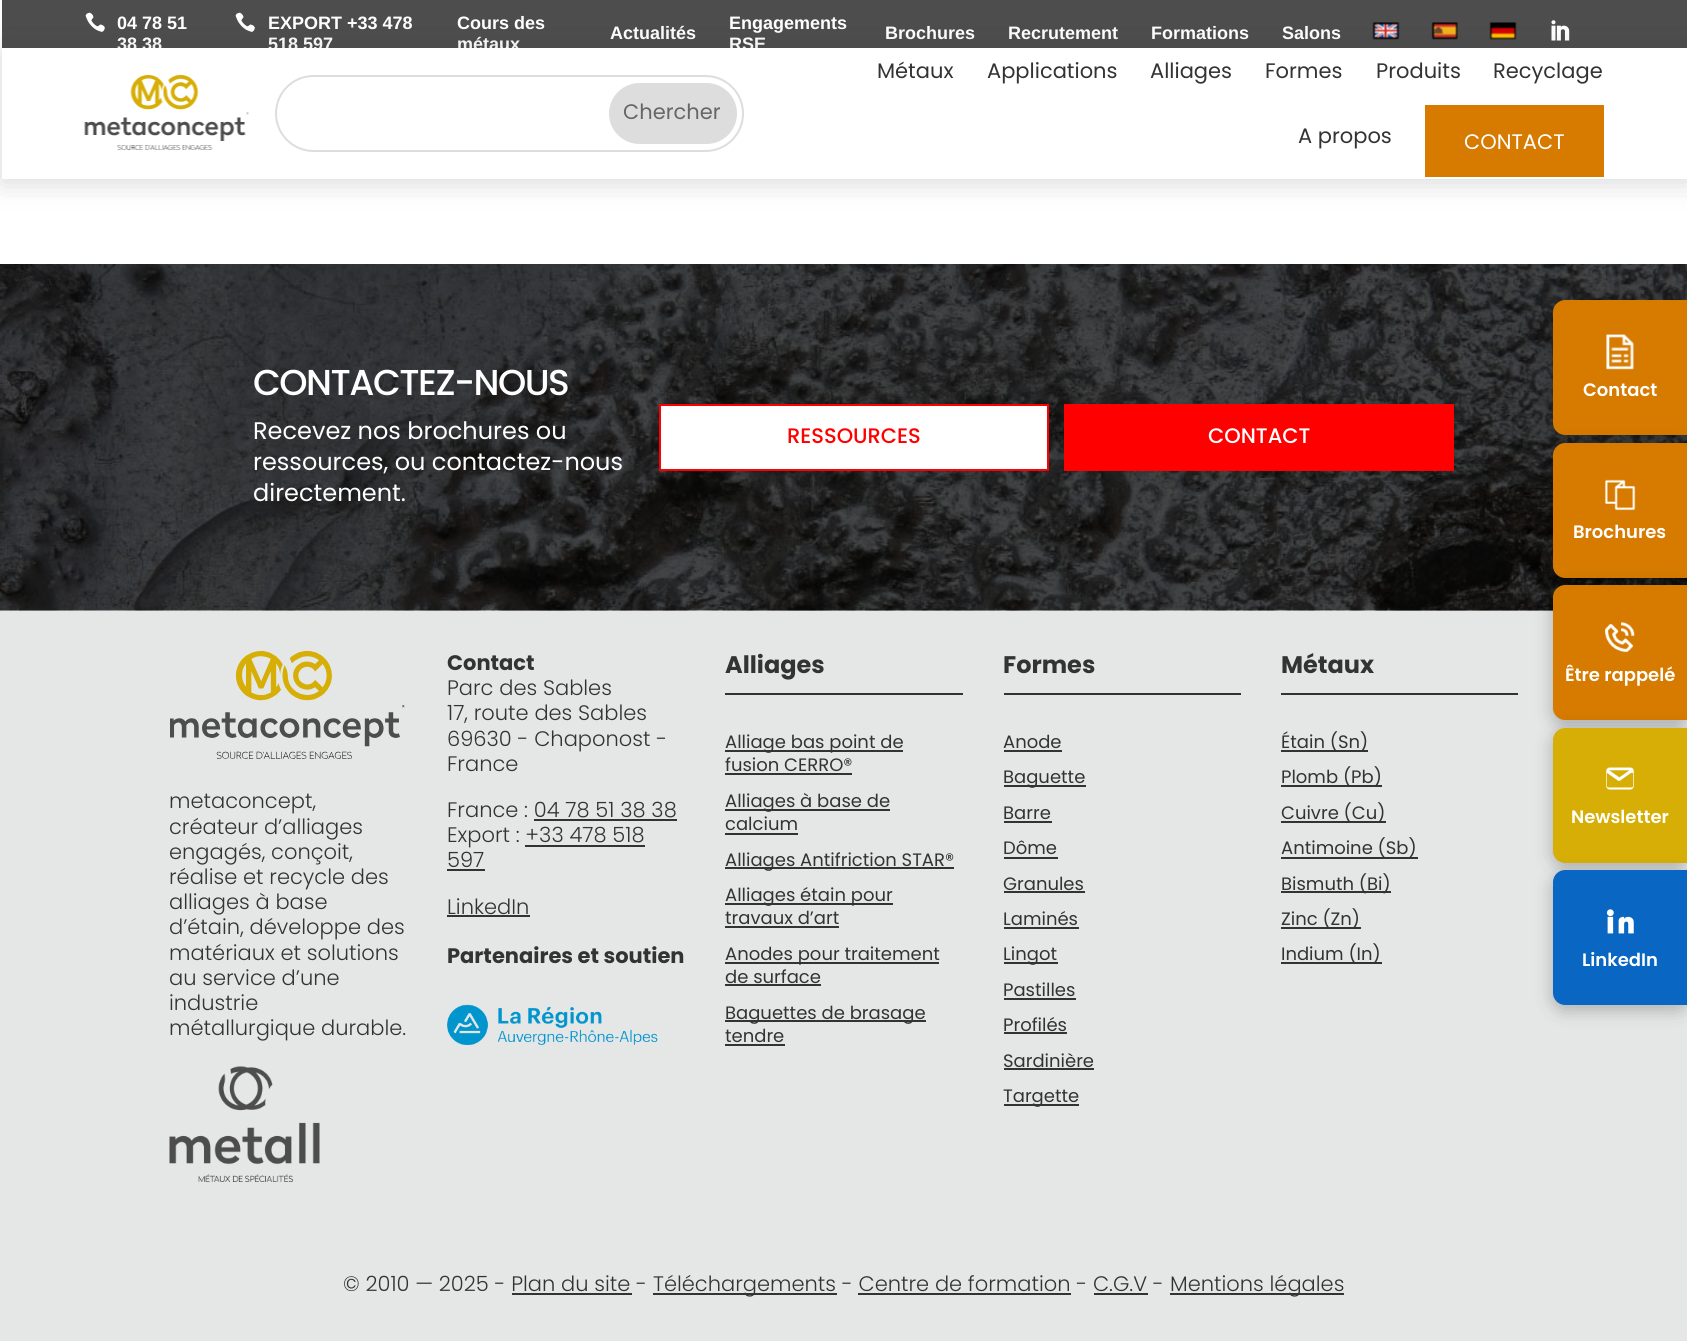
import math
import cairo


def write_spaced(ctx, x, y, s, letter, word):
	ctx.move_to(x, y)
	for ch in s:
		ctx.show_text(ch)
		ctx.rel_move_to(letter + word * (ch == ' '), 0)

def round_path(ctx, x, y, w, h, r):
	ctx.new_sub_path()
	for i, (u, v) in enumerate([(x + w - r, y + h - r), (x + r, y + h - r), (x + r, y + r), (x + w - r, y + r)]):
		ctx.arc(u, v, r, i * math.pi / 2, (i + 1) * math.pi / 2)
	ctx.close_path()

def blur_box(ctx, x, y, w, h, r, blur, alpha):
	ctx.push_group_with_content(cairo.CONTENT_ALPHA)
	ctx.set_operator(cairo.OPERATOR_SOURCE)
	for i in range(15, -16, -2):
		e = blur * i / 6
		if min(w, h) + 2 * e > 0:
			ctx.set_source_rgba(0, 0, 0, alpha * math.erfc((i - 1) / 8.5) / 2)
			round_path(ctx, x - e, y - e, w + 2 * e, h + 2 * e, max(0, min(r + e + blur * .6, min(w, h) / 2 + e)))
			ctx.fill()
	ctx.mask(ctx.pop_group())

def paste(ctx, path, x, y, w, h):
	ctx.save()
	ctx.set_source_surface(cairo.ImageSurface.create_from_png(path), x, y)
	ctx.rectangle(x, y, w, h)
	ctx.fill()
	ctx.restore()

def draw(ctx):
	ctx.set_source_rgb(1, 1, 1)
	ctx.paint()
	ctx.set_source_rgb(0.302, 0.302, 0.302)
	ctx.rectangle(2, 0, 1685, 48)
	ctx.fill()
	paste(ctx, 'media/1.png', 85, 12, 20, 20)
	ctx.select_font_face('Liberation Sans', cairo.FONT_SLANT_NORMAL, cairo.FONT_WEIGHT_BOLD)
	ctx.set_font_size(18)
	ctx.set_source_rgb(1, 1, 1)
	ctx.move_to(117, 29)
	ctx.show_text('04 78 51')
	ctx.move_to(117, 50)
	ctx.show_text('38 38')
	paste(ctx, 'media/1.png', 235, 12, 20, 20)
	for x, y, s in [
		(268, 29, 'EXPORT +33 478'),
		(268, 50, '518 597'),
		(457, 29, 'Cours des'),
		(457, 50, 'métaux'),
		(610, 39, 'Actualités'),
		(729, 29, 'Engagements'),
		(729, 50, 'RSE'),
		(885, 39, 'Brochures'),
		(1008, 39, 'Recrutement'),
		(1151, 39, 'Formations'),
		(1282, 39, 'Salons'),
	]:
		ctx.move_to(x, y)
		ctx.show_text(s)
	paste(ctx, 'media/2.png', 1372, 22, 28, 18)
	paste(ctx, 'media/3.png', 1431, 22, 27, 18)
	paste(ctx, 'media/4.png', 1489, 22, 28, 18)
	paste(ctx, 'media/5.png', 1551, 20, 19, 21)
	ctx.save()
	ctx.set_fill_rule(cairo.FILL_RULE_EVEN_ODD)
	ctx.new_path()
	ctx.move_to(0, 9)
	ctx.line_to(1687, 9)
	ctx.line_to(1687, 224)
	ctx.line_to(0, 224)
	ctx.close_path()
	ctx.move_to(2, 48)
	ctx.line_to(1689, 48)
	ctx.line_to(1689, 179)
	ctx.line_to(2, 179)
	ctx.close_path()
	ctx.clip()
	ctx.set_source_rgb(0.176, 0.18, 0.227)
	blur_box(ctx, 2, 51, 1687, 131, 0, 13.5, 0.2)
	ctx.restore()
	ctx.rectangle(2, 178, 1685, 1)
	ctx.fill()
	paste(ctx, 'media/6.png', 84, 75, 165, 75)
	round_path(ctx, 276, 76, 467, 75, 37.5)
	ctx.set_source_rgb(0.867, 0.867, 0.867)
	ctx.stroke()
	round_path(ctx, 609, 83, 128, 61, 30.5)
	ctx.fill()
	ctx.select_font_face('Poppins')
	ctx.set_font_size(21)
	ctx.set_source_rgb(0.4, 0.4, 0.4)
	ctx.move_to(623, 119)
	ctx.show_text('Chercher')
	ctx.set_source_rgb(0.2, 0.2, 0.2)
	for x, y, s in [
		(877, 78, 'Métaux'),
		(987, 78, 'Applications'),
		(1150, 78, 'Alliages'),
		(1265, 78, 'Formes'),
		(1376, 78, 'Produits'),
		(1493, 78, 'Recyclage'),
		(1298, 143, 'A propos'),
	]:
		ctx.move_to(x, y)
		ctx.show_text(s)
	ctx.set_source_rgb(0.839, 0.478, 0)
	ctx.rectangle(1425, 105, 179, 72)
	ctx.fill()
	ctx.set_source_rgb(1, 1, 1)
	ctx.move_to(1464, 149)
	ctx.show_text('CONTACT')
	paste(ctx, 'media/7.png', 0, 264, 1687, 347)
	ctx.select_font_face('Poppins Medium')
	ctx.set_font_size(36)
	write_spaced(ctx, 253, 395, 'CONTACTEZ-NOUS', -1.5, 0)
	ctx.select_font_face('Poppins')
	ctx.set_font_size(24)
	for x, y, s in [
		(253, 439, 'Recevez nos brochures ou'),
		(253, 470, 'ressources, ou contactez-nous'),
		(253, 501, 'directement.'),
	]:
		ctx.move_to(x, y)
		ctx.show_text(s)
	ctx.rectangle(660, 405, 388, 65)
	ctx.fill_preserve()
	ctx.set_source_rgb(1, 0, 0)
	ctx.stroke()
	ctx.select_font_face('Poppins Medium')
	ctx.set_font_size(21)
	ctx.move_to(787, 443)
	ctx.show_text('RESSOURCES')
	ctx.rectangle(1064, 404, 390, 67)
	ctx.fill()
	ctx.set_source_rgb(1, 1, 1)
	ctx.move_to(1208, 443)
	ctx.show_text('CONTACT')
	ctx.set_source_rgb(0.898, 0.906, 0.906)
	ctx.rectangle(0, 611, 1687, 730)
	ctx.fill()
	paste(ctx, 'media/8.png', 170, 651, 235, 108)
	ctx.select_font_face('Poppins Light')
	ctx.set_source_rgb(0.2, 0.2, 0.2)
	for x, y, s in [
		(169, 808, 'metaconcept,'),
		(169, 834, 'créateur d’alliages'),
		(169, 859, 'engagés, conçoit,'),
		(169, 884, 'réalise et recycle des'),
		(169, 909, 'alliages à base'),
		(169, 934, 'd’étain, développe des'),
		(169, 960, 'matériaux et solutions'),
		(169, 985, 'au service d’une'),
		(169, 1010, 'industrie'),
		(169, 1035, 'métallurgique durable.'),
	]:
		ctx.move_to(x, y)
		ctx.show_text(s)
	paste(ctx, 'media/9.png', 169, 1066, 151, 116)
	ctx.select_font_face('Poppins', cairo.FONT_SLANT_NORMAL, cairo.FONT_WEIGHT_BOLD)
	ctx.move_to(447, 670)
	ctx.show_text('Contact')
	ctx.select_font_face('Poppins Light')
	for x, y, s in [
		(447, 695, 'Parc des Sables'),
		(447, 720, '17, route des Sables'),
		(447, 746, '69630 - Chaponost -'),
		(447, 771, 'France'),
		(447, 817, 'France : 04 78 51 38 38'),
	]:
		ctx.move_to(x, y)
		ctx.show_text(s)
	ctx.rectangle(534, 819, 143, 2)
	ctx.fill()
	ctx.move_to(447, 842)
	ctx.show_text('Export : +33 478 518')
	ctx.move_to(447, 867)
	ctx.show_text('597')
	ctx.rectangle(525, 845, 120, 2)
	ctx.fill()
	ctx.rectangle(447, 869, 38, 2)
	ctx.fill()
	ctx.move_to(447, 914)
	ctx.show_text('LinkedIn')
	ctx.rectangle(447, 915, 83, 2)
	ctx.fill()
	ctx.select_font_face('Poppins', cairo.FONT_SLANT_NORMAL, cairo.FONT_WEIGHT_BOLD)
	ctx.move_to(447, 963)
	ctx.show_text('Partenaires et soutien')
	paste(ctx, 'media/10.png', 447, 1004, 211, 41)
	ctx.set_font_size(24)
	ctx.move_to(725, 673)
	ctx.show_text('Alliages')
	ctx.rectangle(725, 693, 238, 2)
	ctx.fill()
	ctx.rectangle(725, 750, 178, 2)
	ctx.fill()
	ctx.select_font_face('Poppins')
	ctx.set_font_size(18)
	ctx.move_to(725, 748)
	ctx.show_text('Alliage bas point de')
	ctx.move_to(725, 771)
	ctx.show_text('fusion CERRO®')
	ctx.rectangle(725, 773, 127, 2)
	ctx.fill()
	ctx.rectangle(725, 809, 165, 2)
	ctx.fill()
	ctx.move_to(725, 807)
	ctx.show_text('Alliages à base de')
	ctx.move_to(725, 830)
	ctx.show_text('calcium')
	ctx.rectangle(725, 833, 73, 2)
	ctx.fill()
	ctx.rectangle(725, 867, 229, 2)
	ctx.fill()
	ctx.move_to(725, 866)
	ctx.show_text('Alliages Antifriction STAR®')
	ctx.rectangle(725, 903, 168, 2)
	ctx.fill()
	ctx.move_to(725, 901)
	ctx.show_text('Alliages étain pour')
	ctx.move_to(725, 924)
	ctx.show_text('travaux d’art')
	ctx.rectangle(725, 926, 114, 2)
	ctx.fill()
	ctx.rectangle(725, 962, 214, 2)
	ctx.fill()
	ctx.move_to(725, 960)
	ctx.show_text('Anodes pour traitement')
	ctx.move_to(725, 983)
	ctx.show_text('de surface')
	ctx.rectangle(725, 984, 96, 2)
	ctx.fill()
	ctx.rectangle(725, 1020, 201, 2)
	ctx.fill()
	ctx.move_to(725, 1019)
	ctx.show_text('Baguettes de brasage')
	ctx.move_to(725, 1042)
	ctx.show_text('tendre')
	ctx.rectangle(725, 1044, 60, 2)
	ctx.fill()
	ctx.select_font_face('Poppins', cairo.FONT_SLANT_NORMAL, cairo.FONT_WEIGHT_BOLD)
	ctx.set_font_size(24)
	ctx.move_to(1003, 673)
	ctx.show_text('Formes')
	ctx.rectangle(1004, 693, 237, 2)
	ctx.fill()
	ctx.select_font_face('Poppins')
	ctx.set_font_size(18)
	ctx.move_to(1003, 748)
	ctx.show_text('Anode')
	ctx.rectangle(1004, 750, 58, 2)
	ctx.fill()
	ctx.rectangle(1004, 785, 82, 2)
	ctx.fill()
	ctx.move_to(1003, 783)
	ctx.show_text('Baguette')
	ctx.move_to(1003, 819)
	ctx.show_text('Barre')
	ctx.rectangle(1004, 821, 48, 2)
	ctx.fill()
	ctx.move_to(1003, 854)
	ctx.show_text('Dôme')
	ctx.rectangle(1004, 857, 54, 2)
	ctx.fill()
	ctx.move_to(1003, 890)
	ctx.show_text('Granules')
	ctx.rectangle(1004, 891, 81, 2)
	ctx.fill()
	ctx.move_to(1003, 925)
	ctx.show_text('Laminés')
	ctx.rectangle(1004, 927, 75, 2)
	ctx.fill()
	ctx.rectangle(1004, 962, 54, 2)
	ctx.fill()
	ctx.move_to(1003, 960)
	ctx.show_text('Lingot')
	ctx.move_to(1003, 996)
	ctx.show_text('Pastilles')
	ctx.rectangle(1004, 998, 72, 2)
	ctx.fill()
	ctx.move_to(1003, 1031)
	ctx.show_text('Profilés')
	ctx.rectangle(1004, 1032, 63, 2)
	ctx.fill()
	ctx.move_to(1003, 1067)
	ctx.show_text('Sardinière')
	ctx.rectangle(1004, 1068, 90, 2)
	ctx.fill()
	ctx.rectangle(1004, 1104, 75, 2)
	ctx.fill()
	ctx.move_to(1003, 1102)
	ctx.show_text('Targette')
	ctx.select_font_face('Poppins', cairo.FONT_SLANT_NORMAL, cairo.FONT_WEIGHT_BOLD)
	ctx.set_font_size(24)
	ctx.move_to(1281, 673)
	ctx.show_text('Métaux')
	ctx.rectangle(1281, 693, 237, 2)
	ctx.fill()
	ctx.rectangle(1281, 750, 87, 2)
	ctx.fill()
	ctx.select_font_face('Poppins')
	ctx.set_font_size(18)
	ctx.move_to(1281, 748)
	ctx.show_text('Étain (Sn)')
	ctx.rectangle(1281, 785, 101, 2)
	ctx.fill()
	ctx.move_to(1281, 783)
	ctx.show_text('Plomb (Pb)')
	ctx.rectangle(1281, 821, 105, 2)
	ctx.fill()
	ctx.move_to(1281, 819)
	ctx.show_text('Cuivre (Cu)')
	ctx.rectangle(1281, 857, 137, 2)
	ctx.fill()
	ctx.move_to(1281, 854)
	ctx.show_text('Antimoine (Sb)')
	ctx.rectangle(1281, 891, 110, 2)
	ctx.fill()
	ctx.move_to(1281, 890)
	ctx.show_text('Bismuth (Bi)')
	ctx.rectangle(1281, 927, 80, 2)
	ctx.fill()
	ctx.move_to(1281, 925)
	ctx.show_text('Zinc (Zn)')
	ctx.rectangle(1281, 962, 101, 2)
	ctx.fill()
	ctx.move_to(1281, 960)
	ctx.show_text('Indium (In)')
	ctx.select_font_face('Poppins Light')
	ctx.set_font_size(21)
	ctx.move_to(343, 1291)
	ctx.show_text('© 2010 — 2025 - Plan du site -')
	ctx.rectangle(653, 1293, 184, 2)
	ctx.fill()
	ctx.move_to(653, 1291)
	ctx.show_text('Téléchargements - Centre de formation - C.G.V -')
	ctx.rectangle(1170, 1293, 174, 2)
	ctx.fill()
	ctx.move_to(1170, 1291)
	ctx.show_text('Mentions légales')
	ctx.rectangle(512, 1293, 120, 2)
	ctx.rectangle(858, 1293, 213, 2)
	ctx.rectangle(1094, 1293, 54, 2)
	ctx.fill()
	ctx.set_source_rgb(0, 0, 0)
	blur_box(ctx, 1553, 305, 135, 135, 12, 9, 0.25)
	ctx.set_source_rgb(0.839, 0.478, 0)
	ctx.new_path()
	ctx.move_to(1565, 300)
	ctx.line_to(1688, 300)
	ctx.line_to(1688, 435)
	ctx.line_to(1565, 435)
	ctx.curve_to(1558.5, 435, 1553, 429.5, 1553, 423)
	ctx.line_to(1553, 312)
	ctx.curve_to(1553, 305.5, 1558.5, 300, 1565, 300)
	ctx.close_path()
	ctx.fill()
	paste(ctx, 'media/11.png', 1606, 334, 28, 36)
	ctx.select_font_face('Poppins SemiBold')
	ctx.set_font_size(18)
	ctx.set_source_rgb(1, 1, 1)
	ctx.move_to(1583, 396)
	ctx.show_text('Contact')
	ctx.set_source_rgb(0, 0, 0)
	blur_box(ctx, 1553, 447, 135, 135, 12, 9, 0.25)
	ctx.set_source_rgb(0.839, 0.478, 0)
	ctx.new_path()
	ctx.move_to(1565, 443)
	ctx.line_to(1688, 443)
	ctx.line_to(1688, 578)
	ctx.line_to(1565, 578)
	ctx.curve_to(1558.5, 578, 1553, 572.5, 1553, 566)
	ctx.line_to(1553, 455)
	ctx.curve_to(1553, 448.5, 1558.5, 443, 1565, 443)
	ctx.close_path()
	ctx.fill()
	paste(ctx, 'media/12.png', 1604, 479, 32, 32)
	ctx.set_source_rgb(1, 1, 1)
	ctx.move_to(1573, 538)
	ctx.show_text('Brochures')
	ctx.set_source_rgb(0, 0, 0)
	blur_box(ctx, 1553, 590, 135, 135, 12, 9, 0.25)
	ctx.set_source_rgb(0.839, 0.478, 0)
	ctx.new_path()
	ctx.move_to(1565, 585)
	ctx.line_to(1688, 585)
	ctx.line_to(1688, 720)
	ctx.line_to(1565, 720)
	ctx.curve_to(1558.5, 720, 1553, 714.5, 1553, 708)
	ctx.line_to(1553, 597)
	ctx.curve_to(1553, 590.5, 1558.5, 585, 1565, 585)
	ctx.close_path()
	ctx.fill()
	paste(ctx, 'media/13.png', 1605, 622, 30, 31)
	ctx.set_source_rgb(1, 1, 1)
	ctx.move_to(1565, 681)
	ctx.show_text('Être rappelé')
	ctx.set_source_rgb(0, 0, 0)
	blur_box(ctx, 1553, 732, 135, 135, 12, 9, 0.25)
	ctx.set_source_rgb(0.839, 0.682, 0.02)
	ctx.new_path()
	ctx.move_to(1565, 728)
	ctx.line_to(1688, 728)
	ctx.line_to(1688, 863)
	ctx.line_to(1565, 863)
	ctx.curve_to(1558.5, 863, 1553, 857.5, 1553, 851)
	ctx.line_to(1553, 740)
	ctx.curve_to(1553, 733.5, 1558.5, 728, 1565, 728)
	ctx.close_path()
	ctx.fill()
	paste(ctx, 'media/14.png', 1606, 767, 28, 23)
	ctx.set_source_rgb(1, 1, 1)
	ctx.move_to(1571, 823)
	ctx.show_text('Newsletter')
	ctx.set_source_rgb(0, 0, 0)
	blur_box(ctx, 1553, 875, 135, 135, 12, 9, 0.25)
	ctx.set_source_rgb(0.039, 0.4, 0.761)
	ctx.new_path()
	ctx.move_to(1565, 870)
	ctx.line_to(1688, 870)
	ctx.line_to(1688, 1005)
	ctx.line_to(1565, 1005)
	ctx.curve_to(1558.5, 1005, 1553, 999.5, 1553, 993)
	ctx.line_to(1553, 882)
	ctx.curve_to(1553, 875.5, 1558.5, 870, 1565, 870)
	ctx.close_path()
	ctx.fill()
	paste(ctx, 'media/15.png', 1606, 909, 28, 25)
	ctx.set_source_rgb(1, 1, 1)
	ctx.move_to(1582, 966)
	ctx.show_text('LinkedIn')


surface = cairo.ImageSurface(cairo.FORMAT_RGB24, 1687, 1341)
ctx = cairo.Context(surface)
options = cairo.FontOptions()
options.set_hint_metrics(cairo.HINT_METRICS_OFF)
options.set_hint_style(cairo.HINT_STYLE_NONE)
ctx.set_font_options(options)
ctx.set_miter_limit(4)
draw(ctx)
surface.write_to_png('image.png')
